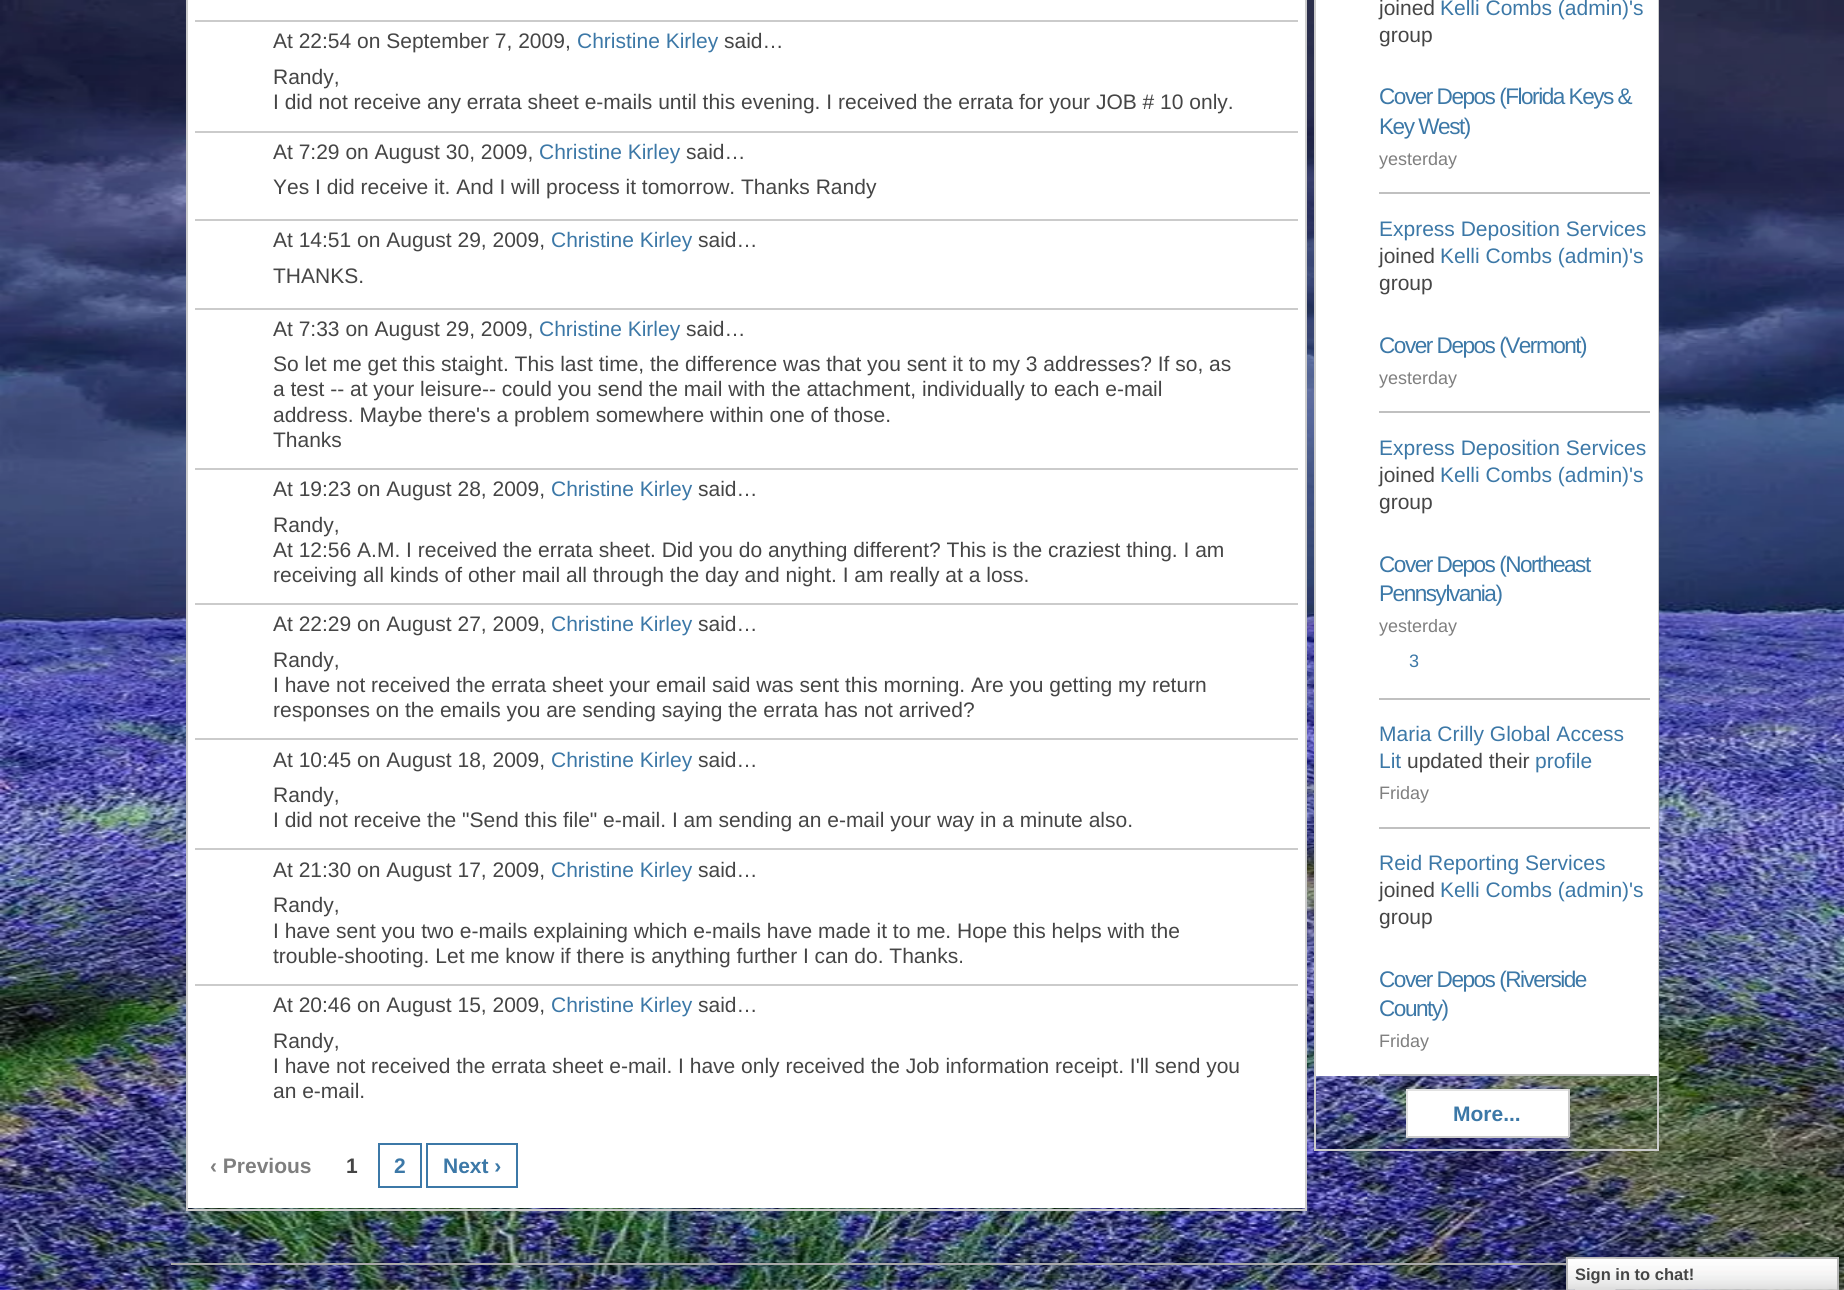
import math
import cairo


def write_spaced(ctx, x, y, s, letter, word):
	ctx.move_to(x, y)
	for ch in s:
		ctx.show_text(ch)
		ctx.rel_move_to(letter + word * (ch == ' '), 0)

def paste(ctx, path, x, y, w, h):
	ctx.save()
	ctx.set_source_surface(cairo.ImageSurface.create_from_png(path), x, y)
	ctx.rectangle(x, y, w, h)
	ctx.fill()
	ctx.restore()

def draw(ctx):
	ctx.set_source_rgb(1, 1, 1)
	ctx.paint()
	paste(ctx, 'media/1.png', 0, 0, 1844, 1290)
	ctx.rectangle(187, -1, 1119, 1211)
	ctx.set_source_rgb(0.8, 0.8, 0.8)
	ctx.stroke()
	ctx.set_source_rgb(1, 1, 1)
	ctx.rectangle(188, 0, 1117, 1208)
	ctx.fill()
	ctx.set_source_rgb(0.796, 0.796, 0.796)
	ctx.rectangle(195, 20, 1103, 2)
	ctx.rectangle(195, 131, 1103, 2)
	ctx.fill()
	ctx.select_font_face('Liberation Sans')
	ctx.set_font_size(21)
	ctx.set_source_rgb(0.271, 0.271, 0.271)
	ctx.move_to(273, 48)
	ctx.show_text('At 22:54 on September 7, 2009,')
	ctx.set_source_rgb(0.235, 0.471, 0.655)
	ctx.move_to(577, 48)
	ctx.show_text('Christine Kirley')
	ctx.set_source_rgb(0.271, 0.271, 0.271)
	for x, y, s in [
		(724, 48, 'said…'),
		(273, 84, 'Randy,'),
		(273, 109, 'I did not receive any errata sheet e-mails until this evening. I received the errata for your JOB # 10 only.'),
	]:
		ctx.move_to(x, y)
		ctx.show_text(s)
	ctx.set_source_rgb(0.796, 0.796, 0.796)
	ctx.rectangle(195, 219, 1103, 2)
	ctx.fill()
	ctx.set_source_rgb(0.271, 0.271, 0.271)
	ctx.move_to(273, 159)
	ctx.show_text('At 7:29 on August 30, 2009,')
	ctx.set_source_rgb(0.235, 0.471, 0.655)
	ctx.move_to(539, 159)
	ctx.show_text('Christine Kirley')
	ctx.set_source_rgb(0.271, 0.271, 0.271)
	ctx.move_to(686, 159)
	ctx.show_text('said…')
	ctx.move_to(273, 194)
	ctx.show_text('Yes I did receive it. And I will process it tomorrow. Thanks Randy')
	ctx.set_source_rgb(0.796, 0.796, 0.796)
	ctx.rectangle(195, 308, 1103, 2)
	ctx.fill()
	ctx.set_source_rgb(0.271, 0.271, 0.271)
	ctx.move_to(273, 247)
	ctx.show_text('At 14:51 on August 29, 2009,')
	ctx.set_source_rgb(0.235, 0.471, 0.655)
	ctx.move_to(551, 247)
	ctx.show_text('Christine Kirley')
	ctx.set_source_rgb(0.271, 0.271, 0.271)
	ctx.move_to(698, 247)
	ctx.show_text('said…')
	ctx.move_to(273, 283)
	ctx.show_text('THANKS.')
	ctx.set_source_rgb(0.796, 0.796, 0.796)
	ctx.rectangle(195, 468, 1103, 2)
	ctx.fill()
	ctx.set_source_rgb(0.271, 0.271, 0.271)
	ctx.move_to(273, 336)
	ctx.show_text('At 7:33 on August 29, 2009,')
	ctx.set_source_rgb(0.235, 0.471, 0.655)
	ctx.move_to(539, 336)
	ctx.show_text('Christine Kirley')
	ctx.set_source_rgb(0.271, 0.271, 0.271)
	for x, y, s in [
		(686, 336, 'said…'),
		(273, 371, 'So let me get this staight. This last time, the difference was that you sent it to my 3 addresses? If so, as'),
		(273, 396, 'a test -- at your leisure-- could you send the mail with the attachment, individually to each e-mail'),
		(273, 422, 'address. Maybe there\'s a problem somewhere within one of those.'),
		(273, 447, 'Thanks'),
	]:
		ctx.move_to(x, y)
		ctx.show_text(s)
	ctx.set_source_rgb(0.796, 0.796, 0.796)
	ctx.rectangle(195, 603, 1103, 2)
	ctx.fill()
	ctx.set_source_rgb(0.271, 0.271, 0.271)
	ctx.move_to(273, 496)
	ctx.show_text('At 19:23 on August 28, 2009,')
	ctx.set_source_rgb(0.235, 0.471, 0.655)
	ctx.move_to(551, 496)
	ctx.show_text('Christine Kirley')
	ctx.set_source_rgb(0.271, 0.271, 0.271)
	for x, y, s in [
		(698, 496, 'said…'),
		(273, 532, 'Randy,'),
		(273, 557, 'At 12:56 A.M. I received the errata sheet. Did you do anything different? This is the craziest thing. I am'),
		(273, 582, 'receiving all kinds of other mail all through the day and night. I am really at a loss.'),
	]:
		ctx.move_to(x, y)
		ctx.show_text(s)
	ctx.set_source_rgb(0.796, 0.796, 0.796)
	ctx.rectangle(195, 738, 1103, 2)
	ctx.fill()
	ctx.set_source_rgb(0.271, 0.271, 0.271)
	ctx.move_to(273, 631)
	ctx.show_text('At 22:29 on August 27, 2009,')
	ctx.set_source_rgb(0.235, 0.471, 0.655)
	ctx.move_to(551, 631)
	ctx.show_text('Christine Kirley')
	ctx.set_source_rgb(0.271, 0.271, 0.271)
	for x, y, s in [
		(698, 631, 'said…'),
		(273, 667, 'Randy,'),
		(273, 692, 'I have not received the errata sheet your email said was sent this morning. Are you getting my return'),
		(273, 717, 'responses on the emails you are sending saying the errata has not arrived?'),
	]:
		ctx.move_to(x, y)
		ctx.show_text(s)
	ctx.set_source_rgb(0.796, 0.796, 0.796)
	ctx.rectangle(195, 848, 1103, 2)
	ctx.fill()
	ctx.set_source_rgb(0.271, 0.271, 0.271)
	ctx.move_to(273, 767)
	ctx.show_text('At 10:45 on August 18, 2009,')
	ctx.set_source_rgb(0.235, 0.471, 0.655)
	ctx.move_to(551, 767)
	ctx.show_text('Christine Kirley')
	ctx.set_source_rgb(0.271, 0.271, 0.271)
	for x, y, s in [
		(698, 767, 'said…'),
		(273, 802, 'Randy,'),
		(273, 827, 'I did not receive the "Send this file" e-mail. I am sending an e-mail your way in a minute also.'),
	]:
		ctx.move_to(x, y)
		ctx.show_text(s)
	ctx.set_source_rgb(0.796, 0.796, 0.796)
	ctx.rectangle(195, 984, 1103, 2)
	ctx.fill()
	ctx.set_source_rgb(0.271, 0.271, 0.271)
	ctx.move_to(273, 877)
	ctx.show_text('At 21:30 on August 17, 2009,')
	ctx.set_source_rgb(0.235, 0.471, 0.655)
	ctx.move_to(551, 877)
	ctx.show_text('Christine Kirley')
	ctx.set_source_rgb(0.271, 0.271, 0.271)
	for x, y, s in [
		(698, 877, 'said…'),
		(273, 912, 'Randy,'),
		(273, 938, 'I have sent you two e-mails explaining which e-mails have made it to me. Hope this helps with the'),
		(273, 963, 'trouble-shooting. Let me know if there is anything further I can do. Thanks.'),
		(273, 1012, 'At 20:46 on August 15, 2009,'),
	]:
		ctx.move_to(x, y)
		ctx.show_text(s)
	ctx.set_source_rgb(0.235, 0.471, 0.655)
	ctx.move_to(551, 1012)
	ctx.show_text('Christine Kirley')
	ctx.set_source_rgb(0.271, 0.271, 0.271)
	for x, y, s in [
		(698, 1012, 'said…'),
		(273, 1048, 'Randy,'),
		(273, 1073, 'I have not received the errata sheet e-mail. I have only received the Job information receipt. I\'ll send you'),
		(273, 1098, 'an e-mail.'),
	]:
		ctx.move_to(x, y)
		ctx.show_text(s)
	ctx.select_font_face('Liberation Sans', cairo.FONT_SLANT_NORMAL, cairo.FONT_WEIGHT_BOLD)
	ctx.set_source_rgb(0.498, 0.498, 0.498)
	ctx.move_to(210, 1173)
	ctx.show_text('‹ Previous')
	ctx.set_source_rgb(0.271, 0.271, 0.271)
	ctx.move_to(346, 1173)
	ctx.show_text('1')
	ctx.rectangle(379, 1144, 42, 43)
	ctx.set_source_rgb(0.235, 0.471, 0.655)
	ctx.stroke()
	ctx.move_to(394, 1173)
	ctx.show_text('2')
	ctx.rectangle(427, 1144, 90, 43)
	ctx.stroke()
	ctx.move_to(443, 1173)
	ctx.show_text('Next ›')
	ctx.rectangle(1315, -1, 343, 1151)
	ctx.set_source_rgb(0.8, 0.8, 0.8)
	ctx.stroke()
	ctx.set_source_rgb(1, 1, 1)
	ctx.rectangle(1316, 0, 342, 1076)
	ctx.fill()
	ctx.set_source_rgb(0.753, 0.753, 0.753)
	ctx.rectangle(1379, 192, 271, 2)
	ctx.fill()
	ctx.select_font_face('Liberation Sans')
	ctx.set_source_rgb(0.271, 0.271, 0.271)
	ctx.move_to(1379, 15)
	ctx.show_text('joined')
	ctx.set_source_rgb(0.235, 0.471, 0.655)
	ctx.move_to(1440, 15)
	ctx.show_text('Kelli Combs (admin)\'s')
	ctx.set_source_rgb(0.271, 0.271, 0.271)
	ctx.move_to(1379, 42)
	ctx.show_text('group')
	ctx.set_font_size(22.6)
	ctx.set_source_rgb(0.235, 0.471, 0.655)
	write_spaced(ctx, 1379, 104, 'Cover Depos (Florida Keys &', -1.5, 0)
	write_spaced(ctx, 1379, 134, 'Key West)', -1.5, 0)
	ctx.set_font_size(18)
	ctx.set_source_rgb(0.498, 0.498, 0.498)
	ctx.move_to(1379, 165)
	ctx.show_text('yesterday')
	ctx.set_source_rgb(0.753, 0.753, 0.753)
	ctx.rectangle(1379, 411, 271, 2)
	ctx.fill()
	ctx.set_font_size(21)
	ctx.set_source_rgb(0.235, 0.471, 0.655)
	ctx.move_to(1379, 236)
	ctx.show_text('Express Deposition Services')
	ctx.set_source_rgb(0.271, 0.271, 0.271)
	ctx.move_to(1379, 263)
	ctx.show_text('joined')
	ctx.set_source_rgb(0.235, 0.471, 0.655)
	ctx.move_to(1440, 263)
	ctx.show_text('Kelli Combs (admin)\'s')
	ctx.set_source_rgb(0.271, 0.271, 0.271)
	ctx.move_to(1379, 290)
	ctx.show_text('group')
	ctx.set_font_size(22.6)
	ctx.set_source_rgb(0.235, 0.471, 0.655)
	write_spaced(ctx, 1379, 353, 'Cover Depos (Vermont)', -1.5, 0)
	ctx.set_font_size(18)
	ctx.set_source_rgb(0.498, 0.498, 0.498)
	ctx.move_to(1379, 384)
	ctx.show_text('yesterday')
	ctx.set_source_rgb(0.753, 0.753, 0.753)
	ctx.rectangle(1379, 698, 271, 2)
	ctx.fill()
	ctx.set_font_size(21)
	ctx.set_source_rgb(0.235, 0.471, 0.655)
	ctx.move_to(1379, 455)
	ctx.show_text('Express Deposition Services')
	ctx.set_source_rgb(0.271, 0.271, 0.271)
	ctx.move_to(1379, 482)
	ctx.show_text('joined')
	ctx.set_source_rgb(0.235, 0.471, 0.655)
	ctx.move_to(1440, 482)
	ctx.show_text('Kelli Combs (admin)\'s')
	ctx.set_source_rgb(0.271, 0.271, 0.271)
	ctx.move_to(1379, 509)
	ctx.show_text('group')
	ctx.set_font_size(22.6)
	ctx.set_source_rgb(0.235, 0.471, 0.655)
	write_spaced(ctx, 1379, 572, 'Cover Depos (Northeast', -1.5, 0)
	write_spaced(ctx, 1379, 601, 'Pennsylvania)', -1.5, 0)
	ctx.set_font_size(18)
	ctx.set_source_rgb(0.498, 0.498, 0.498)
	ctx.move_to(1379, 632)
	ctx.show_text('yesterday')
	ctx.set_source_rgb(0.235, 0.471, 0.655)
	ctx.move_to(1409, 667)
	ctx.show_text('3')
	ctx.set_source_rgb(0.753, 0.753, 0.753)
	ctx.rectangle(1379, 827, 271, 2)
	ctx.fill()
	ctx.set_font_size(21)
	ctx.set_source_rgb(0.235, 0.471, 0.655)
	ctx.move_to(1379, 741)
	ctx.show_text('Maria Crilly Global Access')
	ctx.move_to(1379, 768)
	ctx.show_text('Lit')
	ctx.set_source_rgb(0.271, 0.271, 0.271)
	ctx.move_to(1407, 768)
	ctx.show_text('updated their')
	ctx.set_source_rgb(0.235, 0.471, 0.655)
	ctx.move_to(1535, 768)
	ctx.show_text('profile')
	ctx.set_font_size(18)
	ctx.set_source_rgb(0.498, 0.498, 0.498)
	ctx.move_to(1379, 799)
	ctx.show_text('Friday')
	ctx.set_source_rgb(0.753, 0.753, 0.753)
	ctx.rectangle(1379, 1074, 271, 2)
	ctx.fill()
	ctx.set_font_size(21)
	ctx.set_source_rgb(0.235, 0.471, 0.655)
	ctx.move_to(1379, 870)
	ctx.show_text('Reid Reporting Services')
	ctx.set_source_rgb(0.271, 0.271, 0.271)
	ctx.move_to(1379, 897)
	ctx.show_text('joined')
	ctx.set_source_rgb(0.235, 0.471, 0.655)
	ctx.move_to(1440, 897)
	ctx.show_text('Kelli Combs (admin)\'s')
	ctx.set_source_rgb(0.271, 0.271, 0.271)
	ctx.move_to(1379, 924)
	ctx.show_text('group')
	ctx.set_font_size(22.6)
	ctx.set_source_rgb(0.235, 0.471, 0.655)
	write_spaced(ctx, 1379, 987, 'Cover Depos (Riverside', -1.5, 0)
	write_spaced(ctx, 1379, 1016, 'County)', -1.5, 0)
	ctx.set_font_size(18)
	ctx.set_source_rgb(0.498, 0.498, 0.498)
	ctx.move_to(1379, 1047)
	ctx.show_text('Friday')
	ctx.set_source_rgb(1, 1, 1)
	ctx.rectangle(1408, 1091, 160, 45)
	ctx.fill()
	ctx.set_source_rgb(0.882, 0.882, 0.882)
	ctx.rectangle(1406, 1089, 163, 2)
	ctx.fill()
	ctx.set_source_rgb(0.8, 0.8, 0.8)
	ctx.rectangle(1568, 1089, 2, 48)
	ctx.rectangle(1406, 1136, 163, 2)
	ctx.fill()
	ctx.set_source_rgb(0.882, 0.882, 0.882)
	ctx.rectangle(1406, 1089, 2, 48)
	ctx.fill()
	ctx.select_font_face('Liberation Sans', cairo.FONT_SLANT_NORMAL, cairo.FONT_WEIGHT_BOLD)
	ctx.set_font_size(21)
	ctx.set_source_rgb(0.235, 0.471, 0.655)
	ctx.move_to(1453, 1121)
	ctx.show_text('More...')
	ctx.set_source_rgb(0.667, 0.667, 0.667)
	ctx.rectangle(171, 1263, 1395, 2)
	ctx.fill()
	paste(ctx, 'media/2.png', 1568, 1259, 269, 31)
	ctx.rectangle(1567, 1258, 271, 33)
	ctx.set_source_rgb(0.718, 0.718, 0.718)
	ctx.stroke()
	paste(ctx, 'media/3.png', 1575, 1258, 41, 32)
	ctx.set_font_size(16.5)
	ctx.set_source_rgb(0.271, 0.271, 0.271)
	ctx.move_to(1575, 1280)
	ctx.show_text('Sign in to chat!')


surface = cairo.ImageSurface(cairo.FORMAT_RGB24, 1844, 1290)
ctx = cairo.Context(surface)
options = cairo.FontOptions()
options.set_hint_metrics(cairo.HINT_METRICS_OFF)
options.set_hint_style(cairo.HINT_STYLE_NONE)
ctx.set_font_options(options)
ctx.set_miter_limit(4)
draw(ctx)
surface.write_to_png('image.png')
